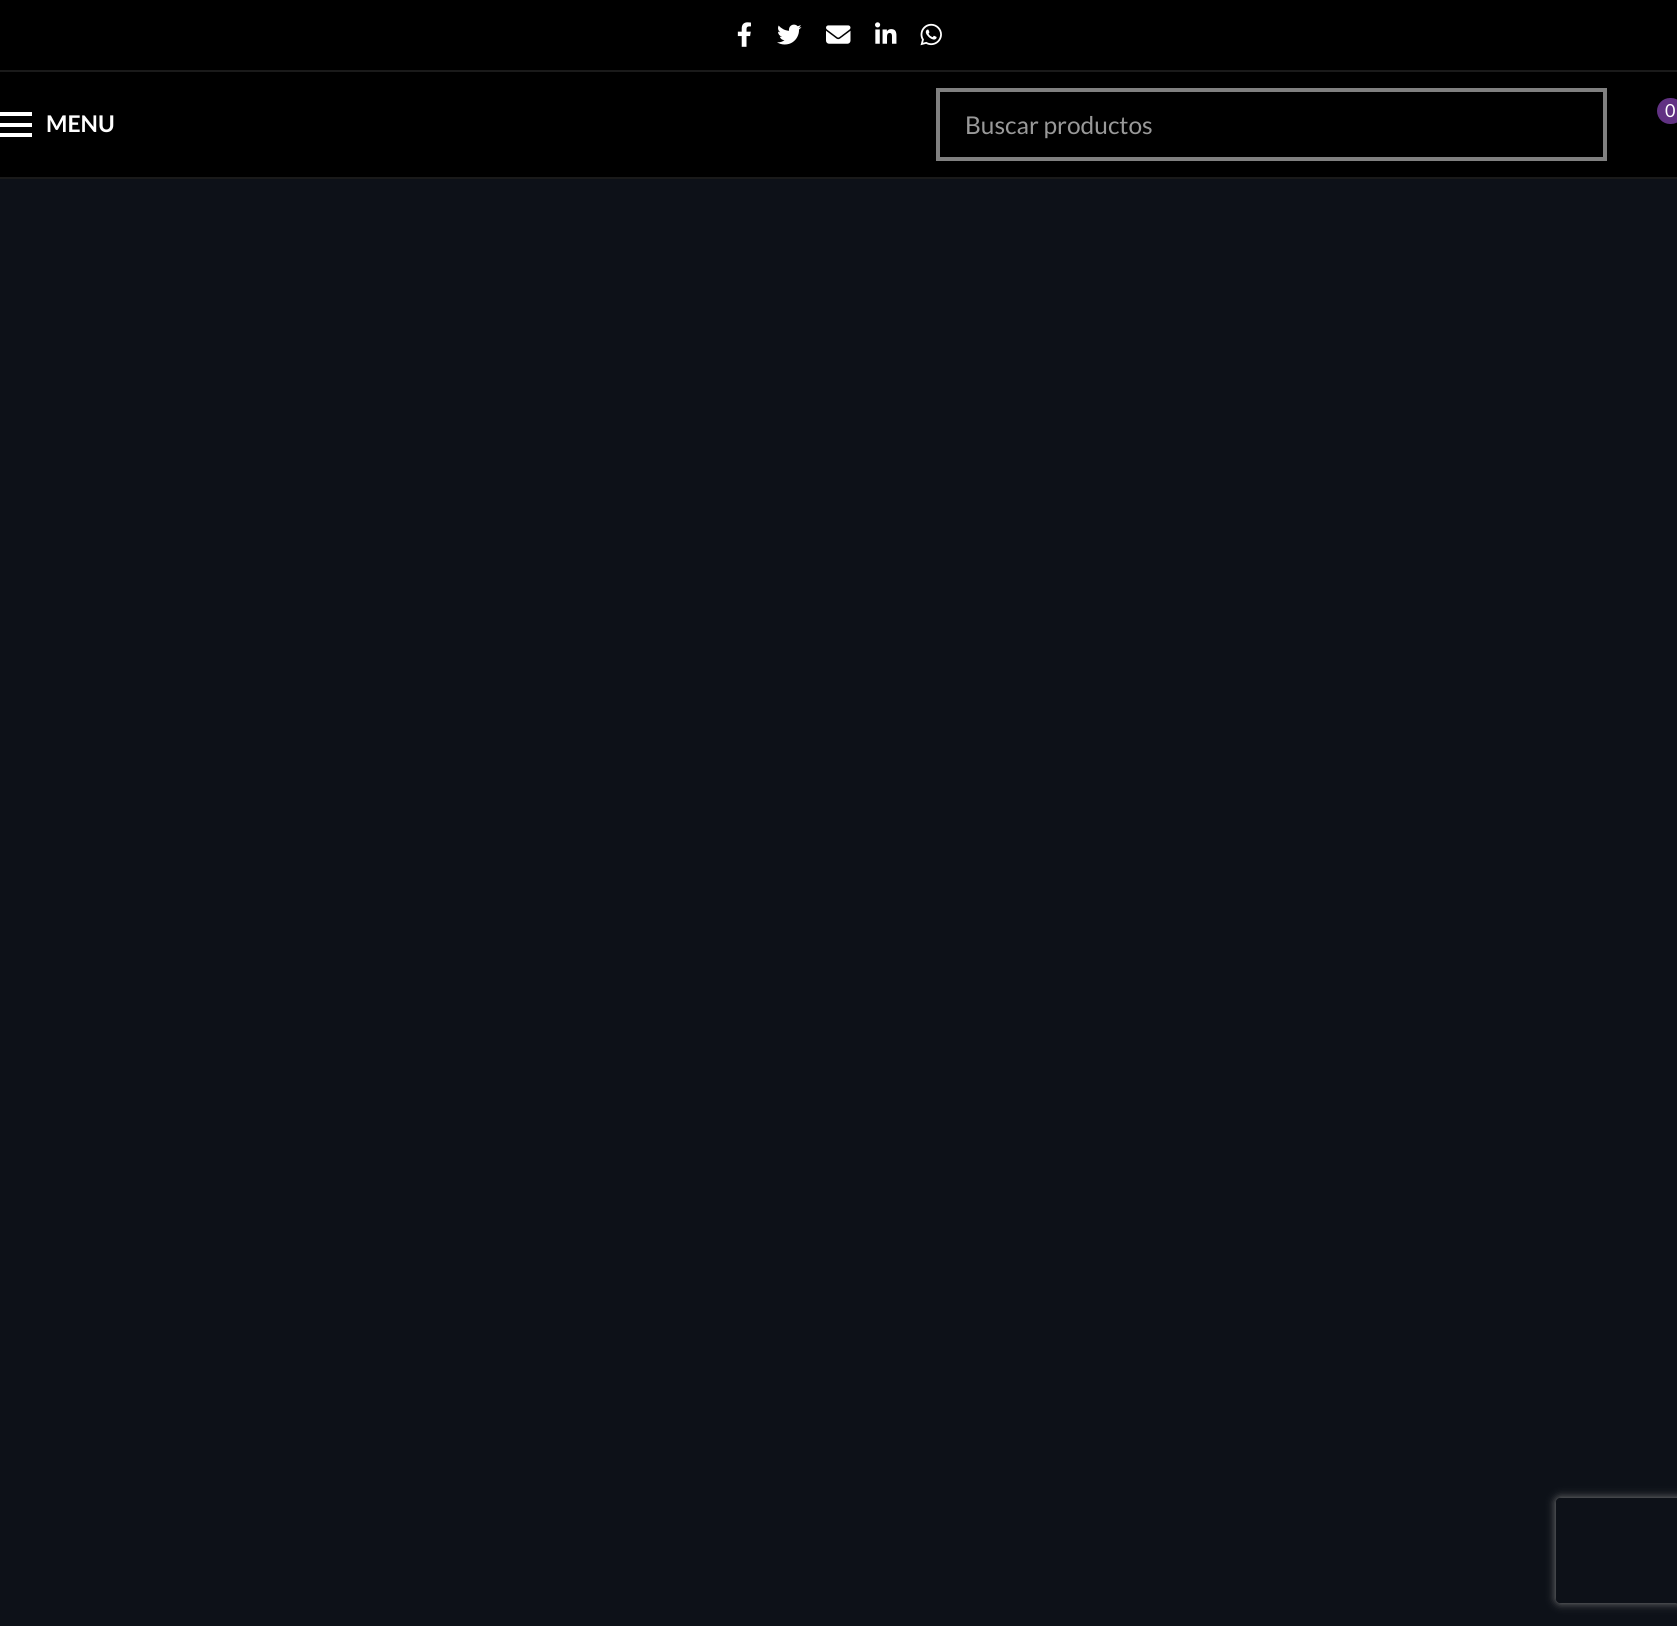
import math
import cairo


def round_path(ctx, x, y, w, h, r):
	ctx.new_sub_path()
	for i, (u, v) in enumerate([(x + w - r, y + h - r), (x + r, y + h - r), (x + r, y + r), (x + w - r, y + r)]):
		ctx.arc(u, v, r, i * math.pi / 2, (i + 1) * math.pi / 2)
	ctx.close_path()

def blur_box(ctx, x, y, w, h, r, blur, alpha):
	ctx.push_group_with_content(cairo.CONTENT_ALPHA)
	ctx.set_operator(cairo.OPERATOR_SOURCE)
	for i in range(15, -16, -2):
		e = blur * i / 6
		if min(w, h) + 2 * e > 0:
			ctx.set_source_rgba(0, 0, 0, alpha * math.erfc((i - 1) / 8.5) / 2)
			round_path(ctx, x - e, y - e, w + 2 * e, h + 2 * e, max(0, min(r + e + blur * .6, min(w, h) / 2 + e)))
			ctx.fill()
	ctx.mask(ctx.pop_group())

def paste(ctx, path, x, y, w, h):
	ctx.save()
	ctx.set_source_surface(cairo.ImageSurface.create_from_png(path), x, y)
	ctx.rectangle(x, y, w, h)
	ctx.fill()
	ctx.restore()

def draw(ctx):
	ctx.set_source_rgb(0.051, 0.067, 0.094)
	ctx.paint()
	ctx.set_source_rgb(0, 0, 0)
	ctx.rectangle(0, 0, 1677, 70)
	ctx.fill()
	ctx.set_source_rgb(0.102, 0.102, 0.102)
	ctx.rectangle(0, 70, 1677, 2)
	ctx.fill()
	paste(ctx, 'media/1.png', 737, 22, 14, 25)
	paste(ctx, 'media/2.png', 777, 24, 25, 21)
	paste(ctx, 'media/3.png', 826, 25, 25, 19)
	paste(ctx, 'media/4.png', 875, 22, 22, 22)
	paste(ctx, 'media/5.png', 920, 23, 22, 23)
	ctx.set_source_rgb(0, 0, 0)
	ctx.rectangle(0, 72, 1677, 105)
	ctx.fill()
	ctx.set_source_rgb(0.102, 0.102, 0.102)
	ctx.rectangle(0, 177, 1677, 2)
	ctx.fill()
	ctx.set_source_rgb(1, 1, 1)
	ctx.rectangle(0, 123, 32, 4)
	ctx.rectangle(0, 112, 32, 4)
	ctx.rectangle(0, 133, 32, 4)
	ctx.fill()
	ctx.select_font_face('Lato', cairo.FONT_SLANT_NORMAL, cairo.FONT_WEIGHT_BOLD)
	ctx.set_font_size(23)
	ctx.move_to(46, 132)
	ctx.show_text('MENU')
	ctx.set_source_rgb(0.38, 0.196, 0.514)
	round_path(ctx, 1657, 98, 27, 26, 13)
	ctx.fill()
	ctx.select_font_face('Lato')
	ctx.set_font_size(18)
	ctx.set_source_rgb(1, 1, 1)
	ctx.move_to(1665, 117)
	ctx.show_text('0')
	ctx.rectangle(938, 90, 667, 69)
	ctx.set_source_rgb(0.502, 0.502, 0.502)
	ctx.set_line_width(4)
	ctx.stroke()
	ctx.set_font_size(24.5)
	ctx.set_source_rgb(0.6, 0.6, 0.6)
	ctx.move_to(965, 134)
	ctx.show_text('Buscar productos')
	ctx.save()
	ctx.set_fill_rule(cairo.FILL_RULE_EVEN_ODD)
	ctx.new_path()
	ctx.move_to(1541, 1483)
	ctx.line_to(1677, 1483)
	ctx.line_to(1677, 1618)
	ctx.line_to(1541, 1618)
	ctx.close_path()
	ctx.move_to(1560, 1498)
	ctx.line_to(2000, 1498)
	ctx.curve_to(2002, 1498, 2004, 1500, 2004, 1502)
	ctx.line_to(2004, 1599)
	ctx.curve_to(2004, 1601, 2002, 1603, 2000, 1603)
	ctx.line_to(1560, 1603)
	ctx.curve_to(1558, 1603, 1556, 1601, 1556, 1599)
	ctx.line_to(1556, 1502)
	ctx.curve_to(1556, 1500, 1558, 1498, 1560, 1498)
	ctx.close_path()
	ctx.clip()
	ctx.set_source_rgb(0.502, 0.502, 0.502)
	blur_box(ctx, 1556, 1498, 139, 105, 4, 4.5, 1)
	ctx.restore()
	ctx.set_source_rgb(0.051, 0.067, 0.094)
	round_path(ctx, 1657, 1537, 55, 70, 35)
	ctx.fill()


surface = cairo.ImageSurface(cairo.FORMAT_RGB24, 1677, 1626)
ctx = cairo.Context(surface)
options = cairo.FontOptions()
options.set_hint_metrics(cairo.HINT_METRICS_OFF)
options.set_hint_style(cairo.HINT_STYLE_NONE)
ctx.set_font_options(options)
ctx.set_miter_limit(4)
draw(ctx)
surface.write_to_png('image.png')
